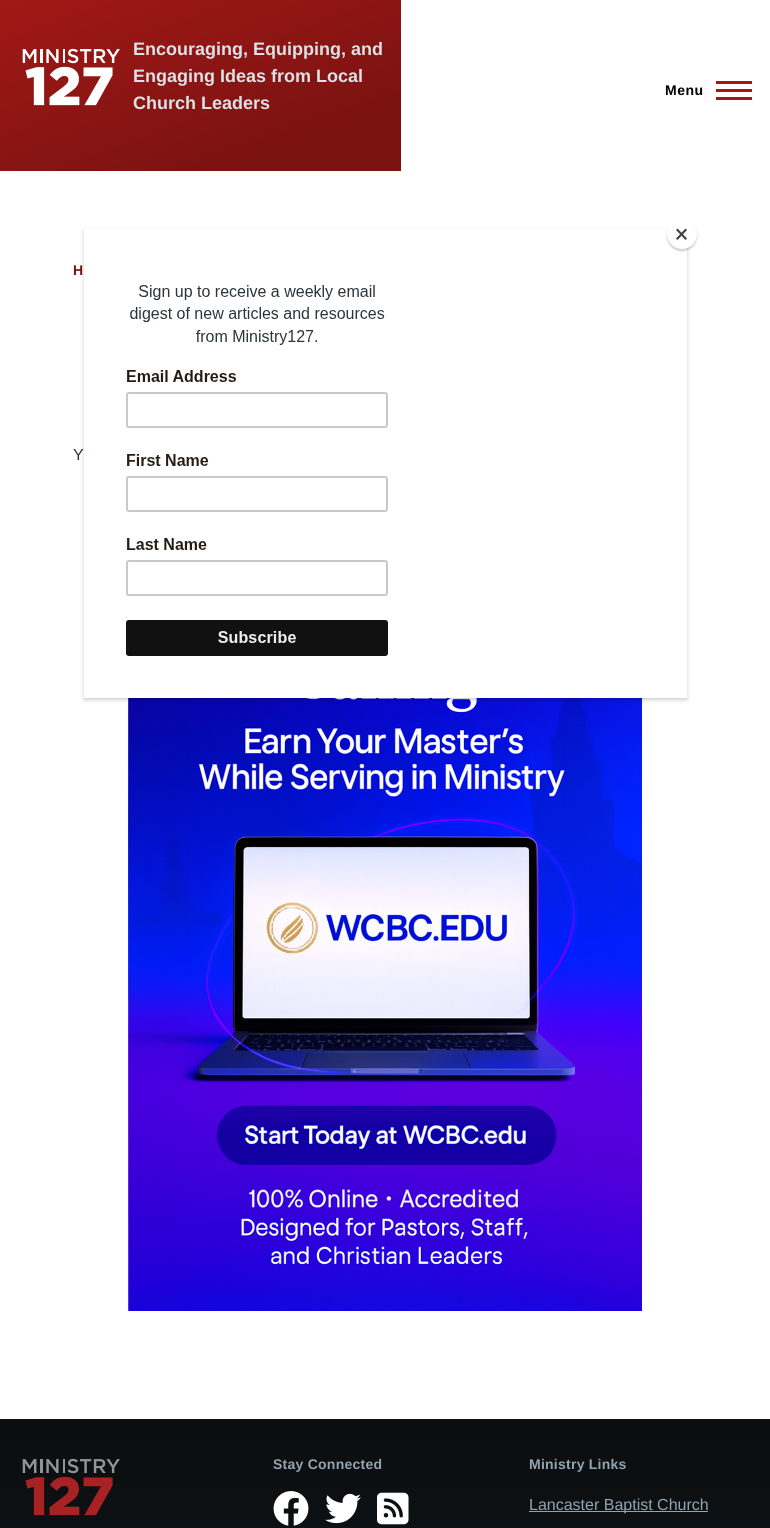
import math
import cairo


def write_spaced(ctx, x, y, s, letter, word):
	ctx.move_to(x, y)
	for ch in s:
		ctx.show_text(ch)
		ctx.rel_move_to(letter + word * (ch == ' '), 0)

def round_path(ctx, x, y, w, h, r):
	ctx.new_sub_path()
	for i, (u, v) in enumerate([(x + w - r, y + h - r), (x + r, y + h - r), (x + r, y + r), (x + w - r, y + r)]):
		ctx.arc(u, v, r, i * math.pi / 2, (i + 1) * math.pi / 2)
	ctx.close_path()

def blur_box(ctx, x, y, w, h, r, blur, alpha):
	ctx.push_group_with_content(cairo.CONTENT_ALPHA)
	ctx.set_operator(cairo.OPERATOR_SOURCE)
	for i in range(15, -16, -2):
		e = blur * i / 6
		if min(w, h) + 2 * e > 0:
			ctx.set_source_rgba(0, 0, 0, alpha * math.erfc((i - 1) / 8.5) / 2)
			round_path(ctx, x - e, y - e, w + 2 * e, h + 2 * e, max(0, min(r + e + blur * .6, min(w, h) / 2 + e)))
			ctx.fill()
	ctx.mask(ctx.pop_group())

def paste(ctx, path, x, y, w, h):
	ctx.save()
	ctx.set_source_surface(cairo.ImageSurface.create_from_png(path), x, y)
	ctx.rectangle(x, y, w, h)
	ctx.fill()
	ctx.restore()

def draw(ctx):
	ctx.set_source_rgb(1, 1, 1)
	ctx.paint()
	gradient = cairo.LinearGradient(150, -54, 251, 225)
	gradient.add_color_stop_rgba(0, 0.635, 0.094, 0.086, 1)
	gradient.add_color_stop_rgba(0.79, 0.482, 0.075, 0.067, 1)
	ctx.set_source(gradient)
	ctx.rectangle(0, 0, 401, 171)
	ctx.fill()
	paste(ctx, 'media/1.png', 22, 48, 98, 58)
	ctx.select_font_face('Liberation Sans', cairo.FONT_SLANT_NORMAL, cairo.FONT_WEIGHT_BOLD)
	ctx.set_font_size(18)
	ctx.set_source_rgb(0.863, 0.886, 0.898)
	for x, y, s in [
		(133, 55, 'Encouraging, Equipping, and'),
		(133, 82, 'Engaging Ideas from Local'),
		(133, 109, 'Church Leaders'),
	]:
		ctx.move_to(x, y)
		ctx.show_text(s)
	ctx.set_font_size(14)
	ctx.set_source_rgb(0, 0, 0)
	write_spaced(ctx, 665, 95, 'Menu', 0.5, 0)
	ctx.set_source_rgb(0.635, 0.094, 0.086)
	ctx.rectangle(716, 89, 36, 3)
	ctx.rectangle(716, 81, 36, 3)
	ctx.rectangle(716, 97, 36, 3)
	ctx.fill()
	ctx.set_source_rgb(0.482, 0.075, 0.067)
	ctx.move_to(73, 275)
	ctx.show_text('H')
	ctx.select_font_face('Liberation Sans')
	ctx.set_font_size(16)
	ctx.set_source_rgb(0.169, 0.208, 0.231)
	ctx.move_to(73, 460)
	ctx.show_text('Y')
	paste(ctx, 'media/2.png', 128, 698, 514, 613)
	gradient = cairo.LinearGradient(385, 1419, 385, 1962)
	gradient.add_color_stop_rgba(0, 0.043, 0.051, 0.059, 1)
	gradient.add_color_stop_rgba(1, 0.094, 0.114, 0.125, 1)
	ctx.set_source(gradient)
	ctx.rectangle(0, 1419, 770, 109)
	ctx.fill()
	paste(ctx, 'media/3.png', 22, 1458, 98, 58)
	ctx.select_font_face('Liberation Sans', cairo.FONT_SLANT_NORMAL, cairo.FONT_WEIGHT_BOLD)
	ctx.set_font_size(14)
	ctx.set_source_rgb(0.573, 0.647, 0.686)
	write_spaced(ctx, 273, 1469, 'Stay Connected', 0.25, 0)
	paste(ctx, 'media/4.png', 273, 1491, 36, 35)
	paste(ctx, 'media/5.png', 325, 1493, 36, 31)
	paste(ctx, 'media/6.png', 377, 1492, 32, 33)
	write_spaced(ctx, 529, 1469, 'Ministry Links', 0.25, 0)
	ctx.rectangle(529, 1511, 179, 1)
	ctx.fill()
	ctx.select_font_face('Liberation Sans')
	ctx.set_font_size(16)
	ctx.move_to(529, 1510)
	ctx.show_text('Lancaster Baptist Church')
	ctx.set_source_rgb(0, 0, 0)
	blur_box(ctx, 667, 221, 30, 30, 15, 1, 0.2)
	ctx.save()
	ctx.set_fill_rule(cairo.FILL_RULE_EVEN_ODD)
	ctx.new_path()
	ctx.move_to(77, 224)
	ctx.line_to(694, 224)
	ctx.line_to(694, 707)
	ctx.line_to(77, 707)
	ctx.close_path()
	ctx.move_to(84, 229)
	ctx.line_to(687, 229)
	ctx.line_to(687, 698)
	ctx.line_to(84, 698)
	ctx.close_path()
	ctx.clip()
	blur_box(ctx, 84, 231, 603, 469, 0, 2, 0.2)
	ctx.restore()
	ctx.set_source_rgb(1, 1, 1)
	ctx.arc(682, 234, 15, 0, 2 * math.pi)
	ctx.fill()
	ctx.set_source_rgb(0.255, 0.255, 0.255)
	ctx.new_path()
	ctx.move_to(685.5, 228.5)
	ctx.line_to(687, 230)
	ctx.line_to(677.5, 240)
	ctx.line_to(676, 238.5)
	ctx.close_path()
	ctx.fill()
	ctx.new_path()
	ctx.move_to(676, 230)
	ctx.line_to(677.5, 228.5)
	ctx.line_to(687, 238.5)
	ctx.line_to(685.5, 240)
	ctx.close_path()
	ctx.fill()
	paste(ctx, 'media/7.png', 84, 267, 558, 431)


surface = cairo.ImageSurface(cairo.FORMAT_RGB24, 770, 1528)
ctx = cairo.Context(surface)
options = cairo.FontOptions()
options.set_hint_metrics(cairo.HINT_METRICS_OFF)
options.set_hint_style(cairo.HINT_STYLE_NONE)
ctx.set_font_options(options)
ctx.set_miter_limit(4)
draw(ctx)
surface.write_to_png('image.png')
